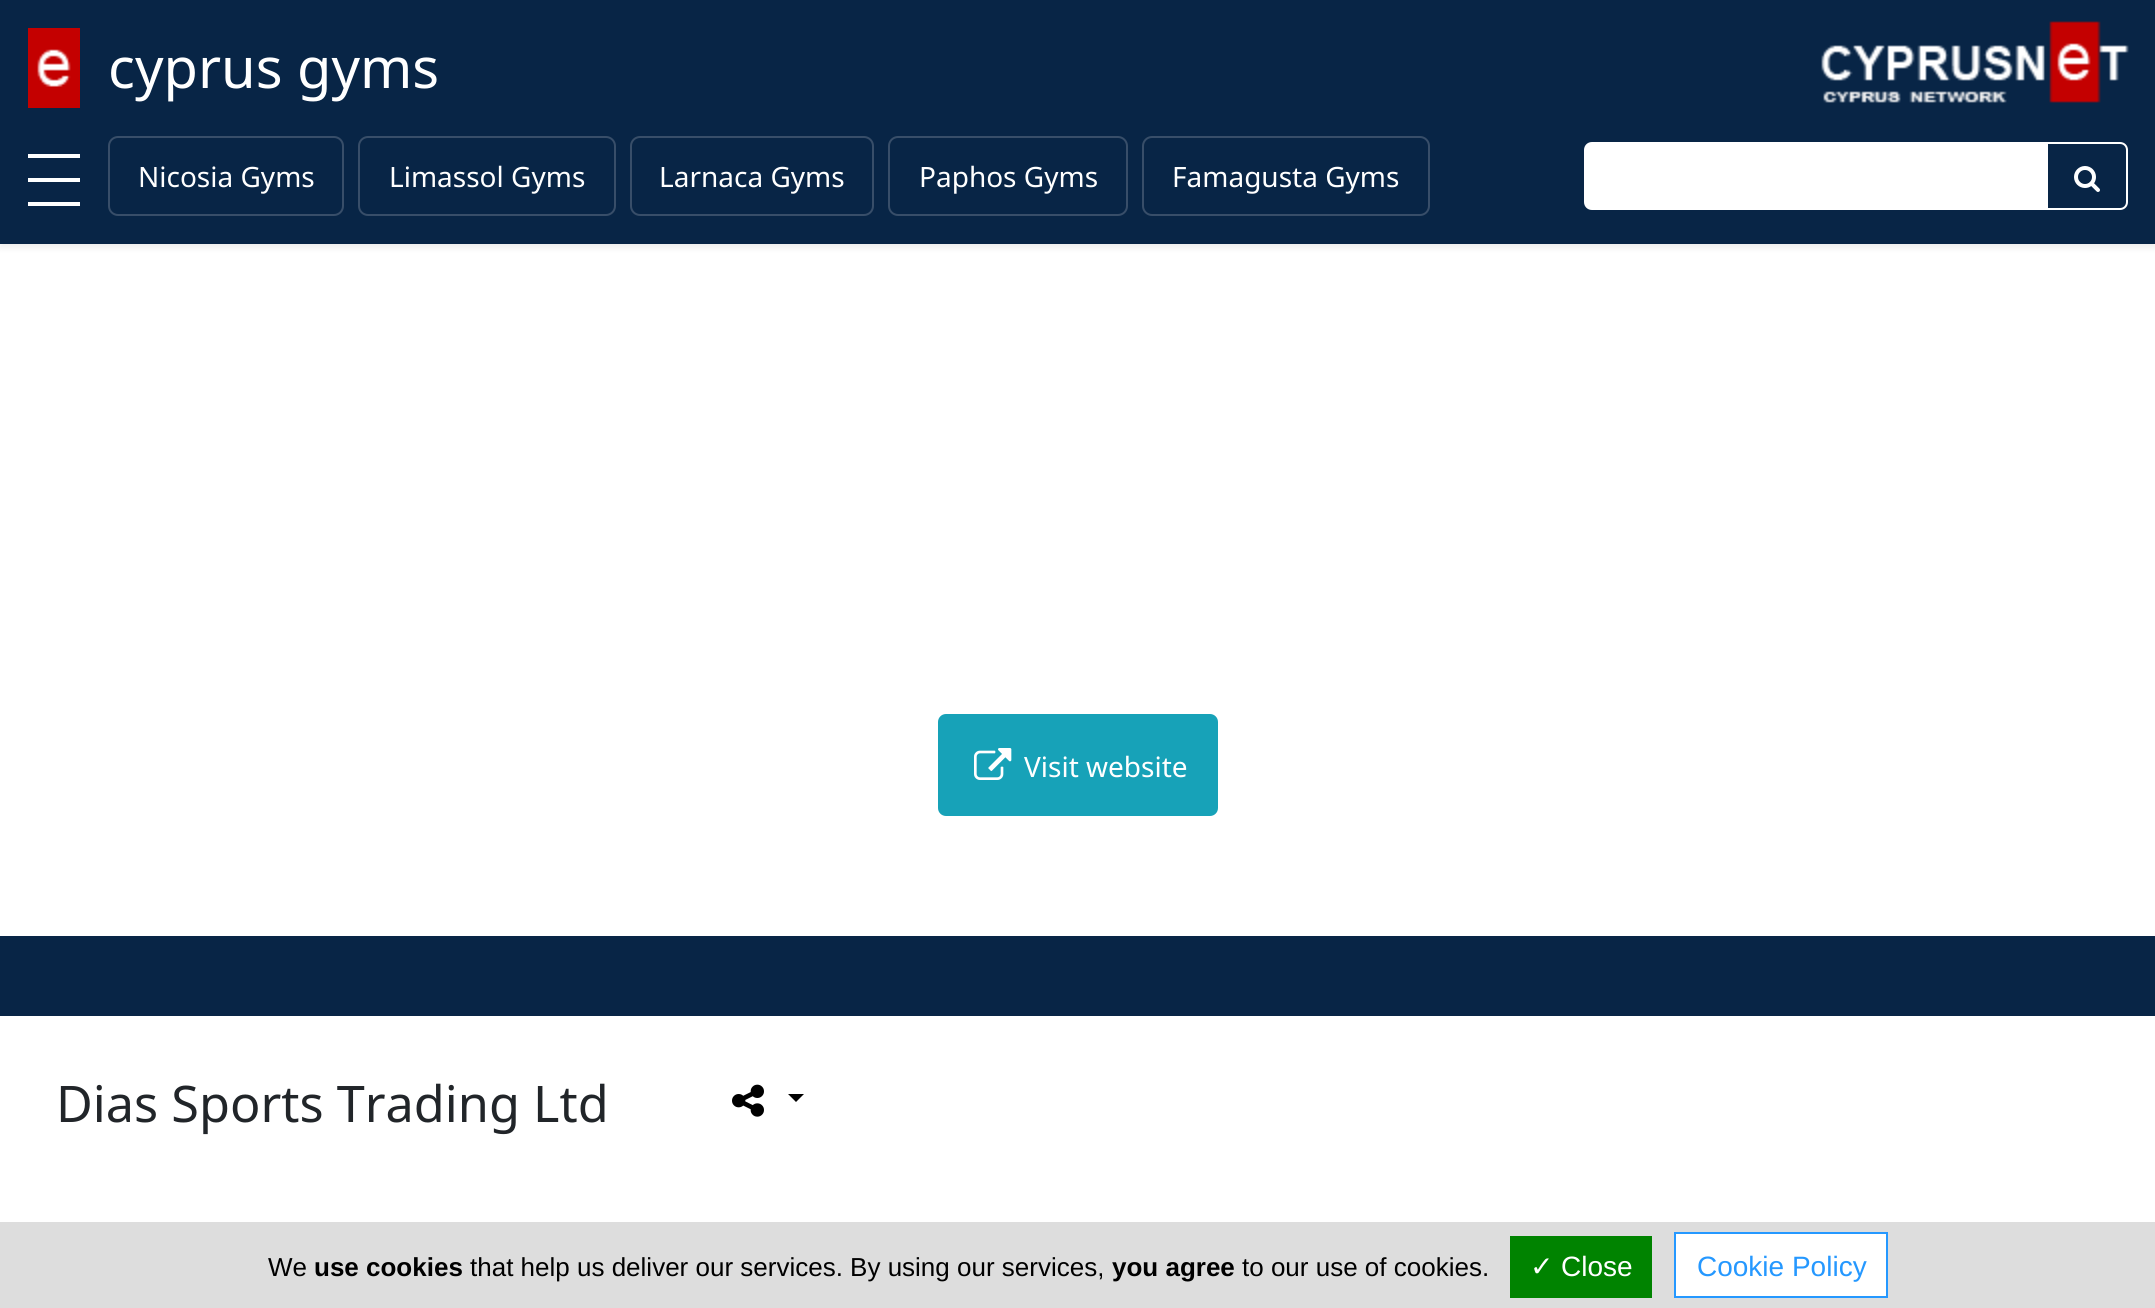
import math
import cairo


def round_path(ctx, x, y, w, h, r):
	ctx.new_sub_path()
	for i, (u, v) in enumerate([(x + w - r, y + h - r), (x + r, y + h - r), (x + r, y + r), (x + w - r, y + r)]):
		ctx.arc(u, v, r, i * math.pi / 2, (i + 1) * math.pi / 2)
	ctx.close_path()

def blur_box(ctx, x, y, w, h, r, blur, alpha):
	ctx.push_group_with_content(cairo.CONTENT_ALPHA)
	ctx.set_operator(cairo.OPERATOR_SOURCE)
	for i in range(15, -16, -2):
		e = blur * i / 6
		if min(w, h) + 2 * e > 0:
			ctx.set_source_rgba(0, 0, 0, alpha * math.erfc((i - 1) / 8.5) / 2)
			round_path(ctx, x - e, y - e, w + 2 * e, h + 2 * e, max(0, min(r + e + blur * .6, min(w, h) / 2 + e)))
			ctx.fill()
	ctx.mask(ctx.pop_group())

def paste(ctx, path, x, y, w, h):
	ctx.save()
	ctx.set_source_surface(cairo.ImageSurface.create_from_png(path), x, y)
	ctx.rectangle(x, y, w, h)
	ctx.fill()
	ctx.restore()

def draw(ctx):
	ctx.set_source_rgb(1, 1, 1)
	ctx.paint()
	ctx.set_source_rgb(0.035, 0.145, 0.275)
	ctx.rectangle(0, 0, 2155, 122)
	ctx.fill()
	paste(ctx, 'media/1.png', 1821, 21, 308, 82)
	paste(ctx, 'media/2.png', 28, 28, 52, 80)
	ctx.select_font_face('Noto Sans')
	ctx.set_font_size(56)
	ctx.set_source_rgb(1, 1, 1)
	ctx.move_to(108, 88)
	ctx.show_text('cyprus gyms')
	ctx.set_source_rgb(0, 0, 0)
	blur_box(ctx, 0, 126, 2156, 122, 0, 3.5, 0.07)
	ctx.set_source_rgb(0.035, 0.145, 0.275)
	ctx.rectangle(0, 122, 2155, 122)
	ctx.fill()
	ctx.set_source_rgb(1, 1, 1)
	ctx.rectangle(28, 178, 52, 4)
	ctx.rectangle(28, 154, 52, 4)
	ctx.rectangle(28, 202, 52, 4)
	ctx.fill()
	round_path(ctx, 109, 137, 234, 78, 9)
	ctx.set_source_rgb(0.22, 0.306, 0.412)
	ctx.stroke()
	ctx.set_font_size(28)
	ctx.set_source_rgb(1, 1, 1)
	ctx.move_to(138, 187)
	ctx.show_text('Nicosia Gyms')
	round_path(ctx, 359, 137, 256, 78, 9)
	ctx.set_source_rgb(0.22, 0.306, 0.412)
	ctx.stroke()
	ctx.set_source_rgb(1, 1, 1)
	ctx.move_to(389, 187)
	ctx.show_text('Limassol Gyms')
	round_path(ctx, 631, 137, 242, 78, 9)
	ctx.set_source_rgb(0.22, 0.306, 0.412)
	ctx.stroke()
	ctx.set_source_rgb(1, 1, 1)
	ctx.move_to(659, 187)
	ctx.show_text('Larnaca Gyms')
	round_path(ctx, 889, 137, 238, 78, 9)
	ctx.set_source_rgb(0.22, 0.306, 0.412)
	ctx.stroke()
	ctx.set_source_rgb(1, 1, 1)
	ctx.move_to(919, 187)
	ctx.show_text('Paphos Gyms')
	round_path(ctx, 1143, 137, 286, 78, 9)
	ctx.set_source_rgb(0.22, 0.306, 0.412)
	ctx.stroke()
	ctx.set_source_rgb(1, 1, 1)
	ctx.move_to(1172, 187)
	ctx.show_text('Famagusta Gyms')
	ctx.new_path()
	ctx.move_to(1592, 143)
	ctx.line_to(2047, 143)
	ctx.line_to(2047, 209)
	ctx.line_to(1592, 209)
	ctx.curve_to(1588, 209, 1585, 206, 1585, 202)
	ctx.line_to(1585, 150)
	ctx.curve_to(1585, 146, 1588, 143, 1592, 143)
	ctx.close_path()
	ctx.fill_preserve()
	ctx.stroke()
	ctx.new_path()
	ctx.move_to(2047, 143)
	ctx.line_to(2120, 143)
	ctx.curve_to(2124, 143, 2127, 146, 2127, 150)
	ctx.line_to(2127, 202)
	ctx.curve_to(2127, 206, 2124, 209, 2120, 209)
	ctx.line_to(2047, 209)
	ctx.close_path()
	ctx.stroke()
	paste(ctx, 'media/3.png', 2074, 166, 26, 26)
	ctx.set_source_rgb(0.09, 0.635, 0.722)
	round_path(ctx, 939, 715, 278, 100, 7)
	ctx.fill_preserve()
	ctx.stroke()
	paste(ctx, 'media/4.png', 974, 748, 38, 32)
	ctx.set_source_rgb(1, 1, 1)
	ctx.move_to(1024, 777)
	ctx.show_text('Visit website')
	ctx.set_source_rgb(0.035, 0.145, 0.275)
	ctx.rectangle(0, 936, 2155, 80)
	ctx.fill()
	ctx.set_font_size(50.4)
	ctx.set_source_rgb(0.129, 0.145, 0.161)
	ctx.move_to(56, 1122)
	ctx.show_text('Dias Sports Trading Ltd')
	paste(ctx, 'media/5.png', 732, 1084, 32, 33)
	ctx.set_source_rgb(0, 0, 0)
	ctx.new_path()
	ctx.move_to(788, 1094)
	ctx.line_to(804, 1094)
	ctx.line_to(796, 1102)
	ctx.close_path()
	ctx.fill()
	ctx.set_source_rgb(0.867, 0.867, 0.867)
	ctx.rectangle(0, 1222, 2155, 86)
	ctx.fill()
	ctx.select_font_face('Liberation Sans')
	ctx.set_font_size(26)
	ctx.set_source_rgb(0, 0, 0)
	ctx.move_to(268, 1276)
	ctx.show_text('We')
	ctx.select_font_face('Liberation Sans', cairo.FONT_SLANT_NORMAL, cairo.FONT_WEIGHT_BOLD)
	ctx.move_to(314, 1276)
	ctx.show_text('use cookies')
	ctx.select_font_face('Liberation Sans')
	ctx.move_to(470, 1276)
	ctx.show_text('that help us deliver our services. By using our services,')
	ctx.select_font_face('Liberation Sans', cairo.FONT_SLANT_NORMAL, cairo.FONT_WEIGHT_BOLD)
	ctx.move_to(1112, 1276)
	ctx.show_text('you agree')
	ctx.select_font_face('Liberation Sans')
	ctx.move_to(1242, 1276)
	ctx.show_text('to our use of cookies.')
	ctx.set_source_rgb(0, 0.514, 0)
	ctx.rectangle(1510, 1236, 142, 62)
	ctx.fill()
	ctx.select_font_face('DejaVu Sans')
	ctx.set_font_size(28)
	ctx.set_source_rgb(1, 1, 1)
	ctx.move_to(1530, 1276)
	ctx.show_text('✓')
	ctx.select_font_face('Liberation Sans')
	ctx.move_to(1561, 1276)
	ctx.show_text('Close')
	ctx.rectangle(1675, 1233, 212, 64)
	ctx.fill_preserve()
	ctx.set_source_rgb(0.145, 0.596, 1)
	ctx.stroke()
	ctx.move_to(1697, 1276)
	ctx.show_text('Cookie Policy')


surface = cairo.ImageSurface(cairo.FORMAT_RGB24, 2155, 1308)
ctx = cairo.Context(surface)
options = cairo.FontOptions()
options.set_hint_metrics(cairo.HINT_METRICS_OFF)
options.set_hint_style(cairo.HINT_STYLE_NONE)
ctx.set_font_options(options)
ctx.set_miter_limit(4)
draw(ctx)
surface.write_to_png('image.png')
